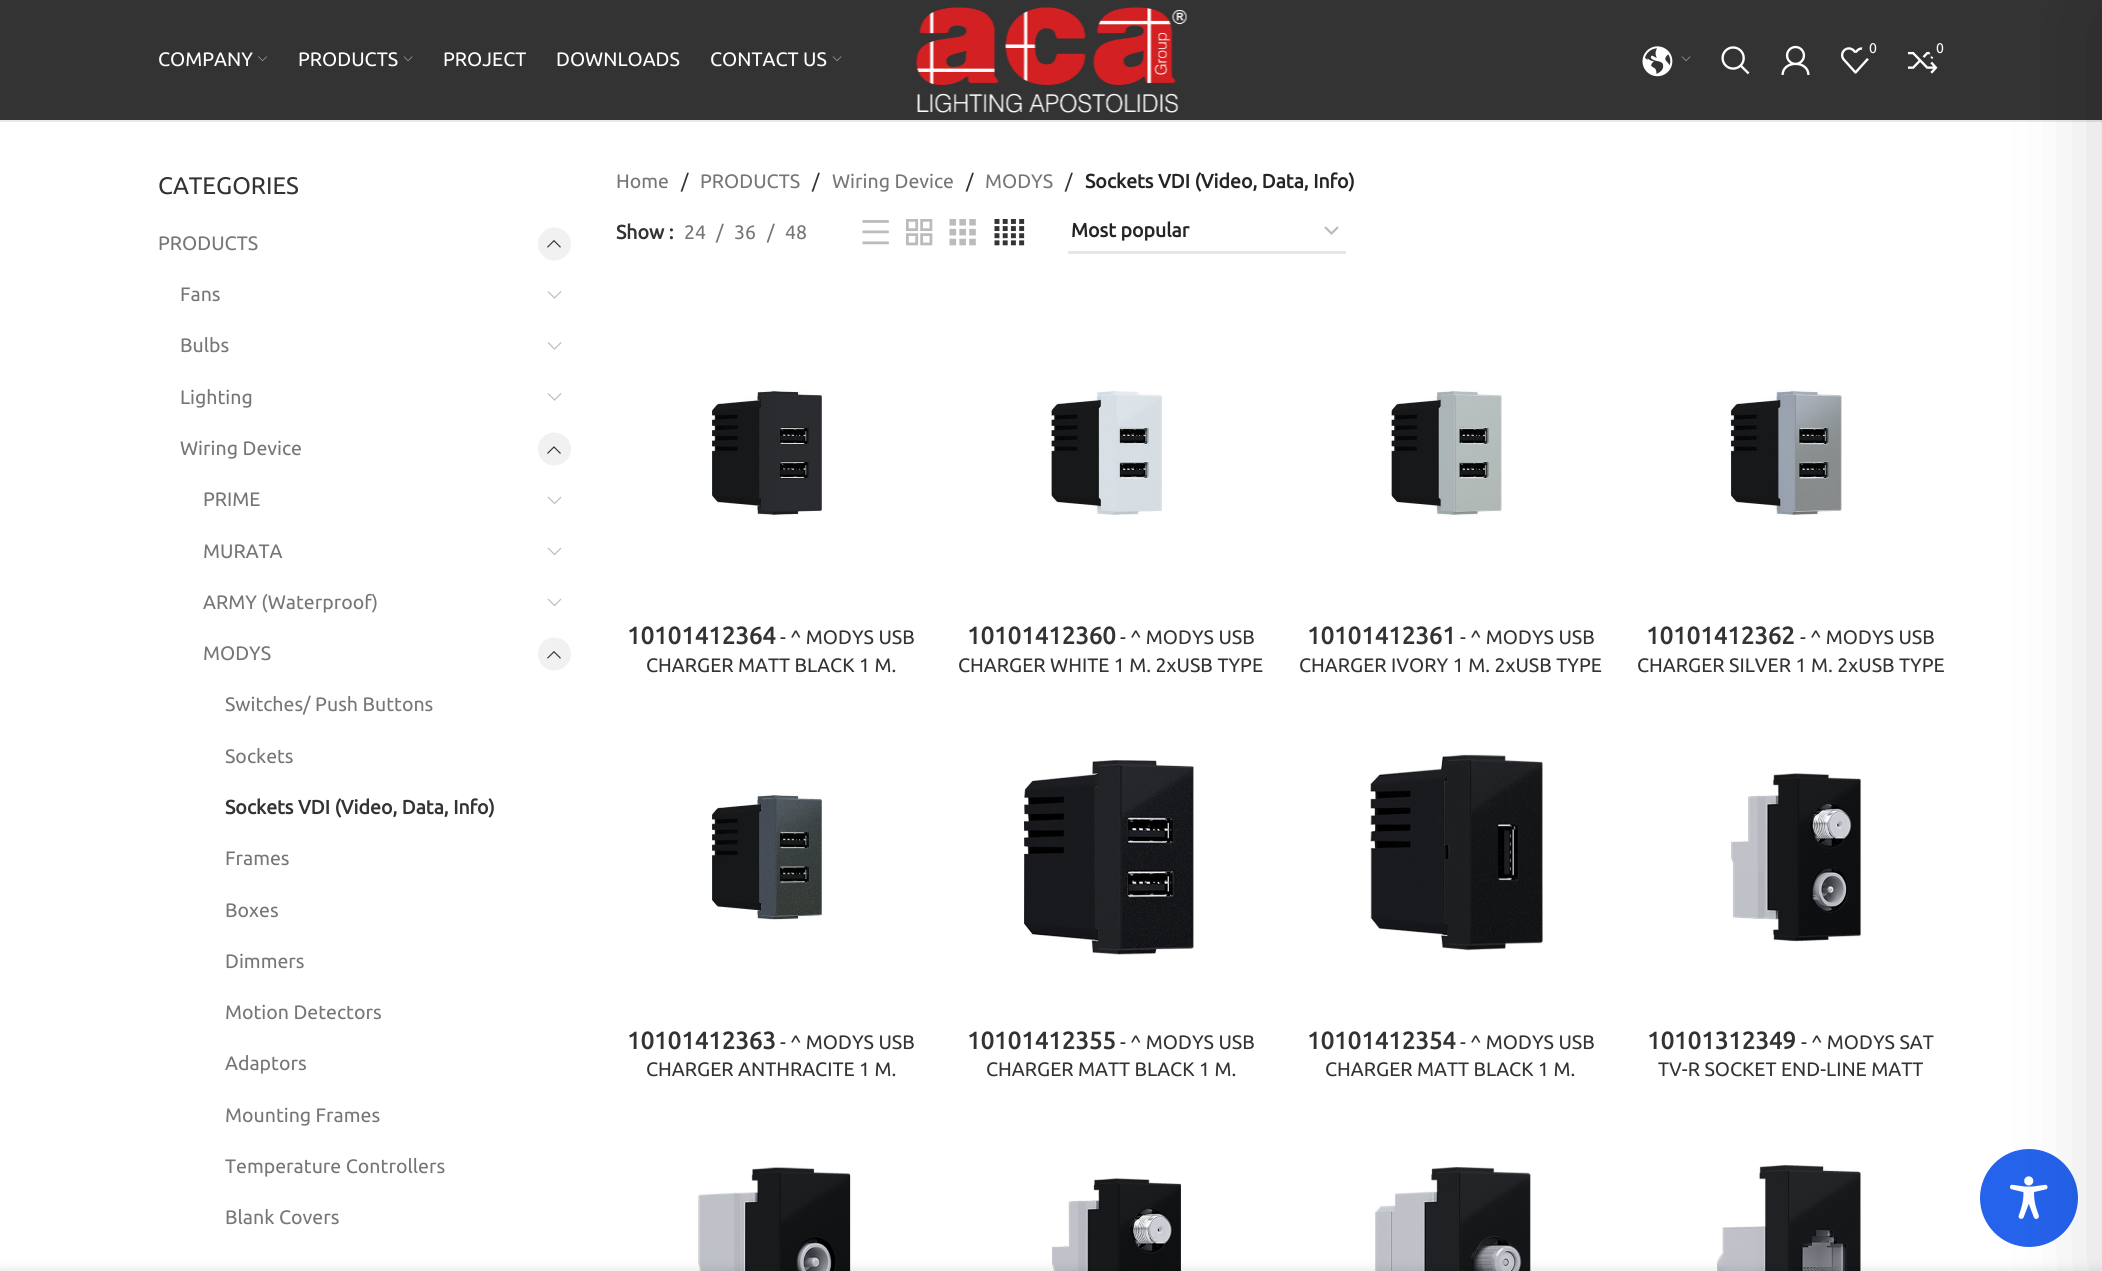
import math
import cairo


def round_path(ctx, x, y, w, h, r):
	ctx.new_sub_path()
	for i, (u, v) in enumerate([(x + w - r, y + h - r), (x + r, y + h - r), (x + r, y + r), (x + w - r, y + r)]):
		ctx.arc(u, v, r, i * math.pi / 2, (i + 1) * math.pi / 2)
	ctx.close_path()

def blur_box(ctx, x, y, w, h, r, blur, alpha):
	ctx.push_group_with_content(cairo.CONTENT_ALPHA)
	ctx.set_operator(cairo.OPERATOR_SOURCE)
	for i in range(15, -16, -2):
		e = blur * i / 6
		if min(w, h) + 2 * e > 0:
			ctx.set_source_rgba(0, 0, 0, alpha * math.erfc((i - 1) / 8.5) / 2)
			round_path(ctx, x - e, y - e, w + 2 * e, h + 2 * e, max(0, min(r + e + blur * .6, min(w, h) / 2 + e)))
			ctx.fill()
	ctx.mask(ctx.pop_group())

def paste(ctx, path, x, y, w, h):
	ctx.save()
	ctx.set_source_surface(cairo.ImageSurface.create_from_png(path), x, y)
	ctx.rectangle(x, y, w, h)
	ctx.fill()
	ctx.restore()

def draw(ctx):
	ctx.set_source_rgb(1, 1, 1)
	ctx.paint()
	ctx.set_source_rgb(0.2, 0.2, 0.2)
	ctx.rectangle(0, 0, 2102, 120)
	ctx.fill()
	ctx.set_source_rgb(0.91, 0.91, 0.91)
	ctx.rectangle(0, 120, 2102, 2)
	ctx.fill()
	paste(ctx, 'media/1.png', 916, 7, 271, 106)
	paste(ctx, 'media/2.png', 1642, 46, 31, 31)
	paste(ctx, 'media/3.png', 1681, 56, 10, 6)
	paste(ctx, 'media/4.png', 1721, 46, 29, 29)
	paste(ctx, 'media/5.png', 1781, 45, 29, 30)
	paste(ctx, 'media/6.png', 1841, 47, 28, 27)
	ctx.set_source_rgb(0.2, 0.2, 0.2)
	ctx.arc(1873, 49, 11, 0, 2 * math.pi)
	ctx.fill()
	ctx.select_font_face('Ubuntu')
	ctx.set_font_size(14)
	ctx.set_source_rgb(1, 1, 1)
	ctx.move_to(1869, 53)
	ctx.show_text('0')
	paste(ctx, 'media/7.png', 1908, 51, 30, 23)
	ctx.set_source_rgb(0.2, 0.2, 0.2)
	round_path(ctx, 1929, 38, 23, 22, 11)
	ctx.fill()
	ctx.set_source_rgb(1, 1, 1)
	ctx.move_to(1936, 53)
	ctx.show_text('0')
	ctx.set_font_size(19.5)
	ctx.move_to(158, 66)
	ctx.show_text('COMPANY')
	paste(ctx, 'media/8.png', 258, 56, 9, 6)
	ctx.move_to(298, 66)
	ctx.show_text('PRODUCTS')
	paste(ctx, 'media/3.png', 403, 56, 10, 6)
	for x, y, s in [
		(443, 66, 'PROJECT'),
		(556, 66, 'DOWNLOADS'),
		(710, 66, 'CONTACT US'),
	]:
		ctx.move_to(x, y)
		ctx.show_text(s)
	paste(ctx, 'media/3.png', 832, 56, 10, 6)
	ctx.set_font_size(24)
	ctx.set_source_rgb(0.2, 0.2, 0.2)
	ctx.move_to(158, 194)
	ctx.show_text('CATEGORIES')
	ctx.set_font_size(19.5)
	ctx.set_source_rgb(0.463, 0.463, 0.463)
	ctx.move_to(158, 250)
	ctx.show_text('PRODUCTS')
	ctx.set_source_rgb(0.945, 0.945, 0.945)
	ctx.new_path()
	ctx.move_to(554, 260.5)
	ctx.curve_to(545, 260.5, 538, 253, 538, 244)
	ctx.curve_to(538, 235, 545, 227.5, 554, 227.5)
	ctx.curve_to(563.5, 227.5, 571, 235, 571, 244)
	ctx.curve_to(571, 253, 563.5, 260.5, 554, 260.5)
	ctx.close_path()
	ctx.fill()
	paste(ctx, 'media/9.png', 547, 240, 14, 8)
	ctx.set_source_rgb(0.463, 0.463, 0.463)
	ctx.move_to(180, 301)
	ctx.show_text('Fans')
	paste(ctx, 'media/10.png', 547, 291, 15, 8)
	ctx.move_to(180, 352)
	ctx.show_text('Bulbs')
	paste(ctx, 'media/10.png', 547, 342, 15, 8)
	ctx.move_to(180, 404)
	ctx.show_text('Lighting')
	paste(ctx, 'media/10.png', 547, 393, 15, 8)
	ctx.move_to(180, 455)
	ctx.show_text('Wiring Device')
	ctx.set_source_rgb(0.945, 0.945, 0.945)
	ctx.new_path()
	ctx.move_to(554, 465.5)
	ctx.curve_to(545, 465.5, 538, 458, 538, 449)
	ctx.curve_to(538, 440, 545, 432.5, 554, 432.5)
	ctx.curve_to(563.5, 432.5, 571, 440, 571, 449)
	ctx.curve_to(571, 458, 563.5, 465.5, 554, 465.5)
	ctx.close_path()
	ctx.fill()
	paste(ctx, 'media/11.png', 547, 446, 14, 8)
	ctx.set_source_rgb(0.463, 0.463, 0.463)
	ctx.move_to(203, 506)
	ctx.show_text('PRIME')
	paste(ctx, 'media/12.png', 547, 496, 15, 9)
	ctx.move_to(203, 558)
	ctx.show_text('MURATA')
	paste(ctx, 'media/12.png', 547, 547, 15, 9)
	ctx.move_to(203, 609)
	ctx.show_text('ARMY (Waterproof)')
	paste(ctx, 'media/12.png', 547, 598, 15, 9)
	ctx.move_to(203, 660)
	ctx.show_text('MODYS')
	ctx.set_source_rgb(0.945, 0.945, 0.945)
	ctx.new_path()
	ctx.move_to(554, 670.5)
	ctx.curve_to(545, 670.5, 538, 663, 538, 654)
	ctx.curve_to(538, 645, 545, 637.5, 554, 637.5)
	ctx.curve_to(563.5, 637.5, 571, 645, 571, 654)
	ctx.curve_to(571, 663, 563.5, 670.5, 554, 670.5)
	ctx.close_path()
	ctx.fill()
	paste(ctx, 'media/9.png', 547, 651, 14, 8)
	ctx.set_source_rgb(0.463, 0.463, 0.463)
	ctx.move_to(225, 711)
	ctx.show_text('Switches/ Push Buttons')
	ctx.move_to(225, 763)
	ctx.show_text('Sockets')
	ctx.select_font_face('Ubuntu', cairo.FONT_SLANT_NORMAL, cairo.FONT_WEIGHT_BOLD)
	ctx.set_source_rgb(0.2, 0.2, 0.2)
	ctx.move_to(225, 814)
	ctx.show_text('Sockets VDI (Video, Data, Info)')
	ctx.select_font_face('Ubuntu')
	ctx.set_source_rgb(0.463, 0.463, 0.463)
	for x, y, s in [
		(225, 865, 'Frames'),
		(225, 917, 'Boxes'),
		(225, 968, 'Dimmers'),
		(225, 1019, 'Motion Detectors'),
		(225, 1070, 'Adaptors'),
		(225, 1122, 'Mounting Frames'),
		(225, 1173, 'Temperature Controllers'),
		(225, 1224, 'Blank Covers'),
		(616, 188, 'Home'),
	]:
		ctx.move_to(x, y)
		ctx.show_text(s)
	ctx.set_source_rgb(0.2, 0.2, 0.2)
	ctx.move_to(681, 188)
	ctx.show_text('/')
	ctx.set_source_rgb(0.463, 0.463, 0.463)
	ctx.move_to(700, 188)
	ctx.show_text('PRODUCTS')
	ctx.set_source_rgb(0.2, 0.2, 0.2)
	ctx.move_to(812, 188)
	ctx.show_text('/')
	ctx.set_source_rgb(0.463, 0.463, 0.463)
	ctx.move_to(832, 188)
	ctx.show_text('Wiring Device')
	ctx.set_source_rgb(0.2, 0.2, 0.2)
	ctx.move_to(966, 188)
	ctx.show_text('/')
	ctx.set_source_rgb(0.463, 0.463, 0.463)
	ctx.move_to(985, 188)
	ctx.show_text('MODYS')
	ctx.set_source_rgb(0.2, 0.2, 0.2)
	ctx.move_to(1065, 188)
	ctx.show_text('/')
	ctx.select_font_face('Ubuntu', cairo.FONT_SLANT_NORMAL, cairo.FONT_WEIGHT_BOLD)
	ctx.set_source_rgb(0.141, 0.141, 0.141)
	ctx.move_to(1085, 188)
	ctx.show_text('Sockets VDI (Video, Data, Info)')
	ctx.set_source_rgb(0.2, 0.2, 0.2)
	ctx.move_to(616, 239)
	ctx.show_text('Show :')
	ctx.select_font_face('Ubuntu')
	ctx.set_source_rgb(0.463, 0.463, 0.463)
	for x, y, s in [
		(684, 239, '24'),
		(716, 239, '/'),
		(734, 239, '36'),
		(767, 239, '/'),
		(785, 239, '48'),
	]:
		ctx.move_to(x, y)
		ctx.show_text(s)
	paste(ctx, 'media/13.png', 862, 220, 27, 25)
	paste(ctx, 'media/14.png', 906, 219, 27, 27)
	paste(ctx, 'media/15.png', 949, 219, 27, 27)
	paste(ctx, 'media/16.png', 994, 219, 31, 27)
	ctx.new_path()
	ctx.move_to(1325, 227)
	ctx.line_to(1331.5, 233.5)
	ctx.line_to(1338, 227)
	ctx.set_source_rgb(0.733, 0.733, 0.733)
	ctx.set_line_width(2.2)
	ctx.stroke()
	ctx.set_source_rgb(0.902, 0.902, 0.902)
	ctx.rectangle(1068, 251, 278, 3)
	ctx.fill()
	ctx.select_font_face('Ubuntu', cairo.FONT_SLANT_NORMAL, cairo.FONT_WEIGHT_BOLD)
	ctx.set_source_rgb(0.141, 0.141, 0.141)
	ctx.move_to(1071, 237)
	ctx.show_text('Most popular')
	paste(ctx, 'media/17.png', 711, 389, 112, 127)
	ctx.set_font_size(24)
	ctx.set_source_rgb(0.2, 0.2, 0.2)
	ctx.move_to(627, 644)
	ctx.show_text('10101412364')
	ctx.select_font_face('Ubuntu')
	ctx.set_font_size(19.5)
	ctx.move_to(780, 644)
	ctx.show_text('- ^ MODYS USB')
	ctx.move_to(646, 672)
	ctx.show_text('CHARGER MATT BLACK 1 M.')
	paste(ctx, 'media/18.png', 1051, 391, 111, 124)
	ctx.select_font_face('Ubuntu', cairo.FONT_SLANT_NORMAL, cairo.FONT_WEIGHT_BOLD)
	ctx.set_font_size(24)
	ctx.move_to(967, 644)
	ctx.show_text('10101412360')
	ctx.select_font_face('Ubuntu')
	ctx.set_font_size(19.5)
	ctx.move_to(1120, 644)
	ctx.show_text('- ^ MODYS USB')
	ctx.move_to(958, 672)
	ctx.show_text('CHARGER WHITE 1 M. 2xUSB TYPE')
	paste(ctx, 'media/19.png', 1391, 389, 111, 128)
	ctx.select_font_face('Ubuntu', cairo.FONT_SLANT_NORMAL, cairo.FONT_WEIGHT_BOLD)
	ctx.set_font_size(24)
	ctx.move_to(1307, 644)
	ctx.show_text('10101412361')
	ctx.select_font_face('Ubuntu')
	ctx.set_font_size(19.5)
	ctx.move_to(1460, 644)
	ctx.show_text('- ^ MODYS USB')
	ctx.move_to(1299, 672)
	ctx.show_text('CHARGER IVORY 1 M. 2xUSB TYPE')
	paste(ctx, 'media/20.png', 1730, 389, 112, 127)
	ctx.select_font_face('Ubuntu', cairo.FONT_SLANT_NORMAL, cairo.FONT_WEIGHT_BOLD)
	ctx.set_font_size(24)
	ctx.move_to(1646, 644)
	ctx.show_text('10101412362')
	ctx.select_font_face('Ubuntu')
	ctx.set_font_size(19.5)
	ctx.move_to(1800, 644)
	ctx.show_text('- ^ MODYS USB')
	ctx.move_to(1637, 672)
	ctx.show_text('CHARGER SILVER 1 M. 2xUSB TYPE')
	paste(ctx, 'media/21.png', 711, 793, 112, 128)
	ctx.select_font_face('Ubuntu', cairo.FONT_SLANT_NORMAL, cairo.FONT_WEIGHT_BOLD)
	ctx.set_font_size(24)
	ctx.move_to(627, 1049)
	ctx.show_text('10101412363')
	ctx.select_font_face('Ubuntu')
	ctx.set_font_size(19.5)
	ctx.move_to(780, 1049)
	ctx.show_text('- ^ MODYS USB')
	ctx.move_to(646, 1076)
	ctx.show_text('CHARGER ANTHRACITE 1 M.')
	paste(ctx, 'media/22.png', 1024, 760, 170, 195)
	ctx.select_font_face('Ubuntu', cairo.FONT_SLANT_NORMAL, cairo.FONT_WEIGHT_BOLD)
	ctx.set_font_size(24)
	ctx.move_to(967, 1049)
	ctx.show_text('10101412355')
	ctx.select_font_face('Ubuntu')
	ctx.set_font_size(19.5)
	ctx.move_to(1120, 1049)
	ctx.show_text('- ^ MODYS USB')
	ctx.move_to(986, 1076)
	ctx.show_text('CHARGER MATT BLACK 1 M.')
	paste(ctx, 'media/23.png', 1370, 754, 173, 197)
	ctx.select_font_face('Ubuntu', cairo.FONT_SLANT_NORMAL, cairo.FONT_WEIGHT_BOLD)
	ctx.set_font_size(24)
	ctx.move_to(1307, 1049)
	ctx.show_text('10101412354')
	ctx.select_font_face('Ubuntu')
	ctx.set_font_size(19.5)
	ctx.move_to(1460, 1049)
	ctx.show_text('- ^ MODYS USB')
	ctx.move_to(1325, 1076)
	ctx.show_text('CHARGER MATT BLACK 1 M.')
	paste(ctx, 'media/24.png', 1731, 773, 130, 169)
	ctx.select_font_face('Ubuntu', cairo.FONT_SLANT_NORMAL, cairo.FONT_WEIGHT_BOLD)
	ctx.set_font_size(24)
	ctx.move_to(1647, 1049)
	ctx.show_text('10101312349')
	ctx.select_font_face('Ubuntu')
	ctx.set_font_size(19.5)
	ctx.move_to(1801, 1049)
	ctx.show_text('- ^ MODYS SAT')
	ctx.move_to(1658, 1076)
	ctx.show_text('TV-R SOCKET END-LINE MATT')
	paste(ctx, 'media/25.png', 698, 1167, 153, 104)
	paste(ctx, 'media/26.png', 1052, 1178, 129, 93)
	paste(ctx, 'media/27.png', 1375, 1167, 156, 104)
	paste(ctx, 'media/28.png', 1717, 1165, 144, 106)
	ctx.set_source_rgb(0.145, 0.388, 0.922)
	ctx.arc(2029, 1198, 49, 0, 2 * math.pi)
	ctx.fill()
	paste(ctx, 'media/29.png', 2009, 1176, 39, 43)
	ctx.set_source_rgb(0, 0, 0)
	blur_box(ctx, 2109, 15, 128, 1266, 0, 45, 0.2)
	blur_box(ctx, 0, 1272, 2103, 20, 0, 7, 0.14)


surface = cairo.ImageSurface(cairo.FORMAT_RGB24, 2102, 1271)
ctx = cairo.Context(surface)
options = cairo.FontOptions()
options.set_hint_metrics(cairo.HINT_METRICS_OFF)
options.set_hint_style(cairo.HINT_STYLE_NONE)
ctx.set_font_options(options)
ctx.set_miter_limit(4)
draw(ctx)
surface.write_to_png('image.png')
